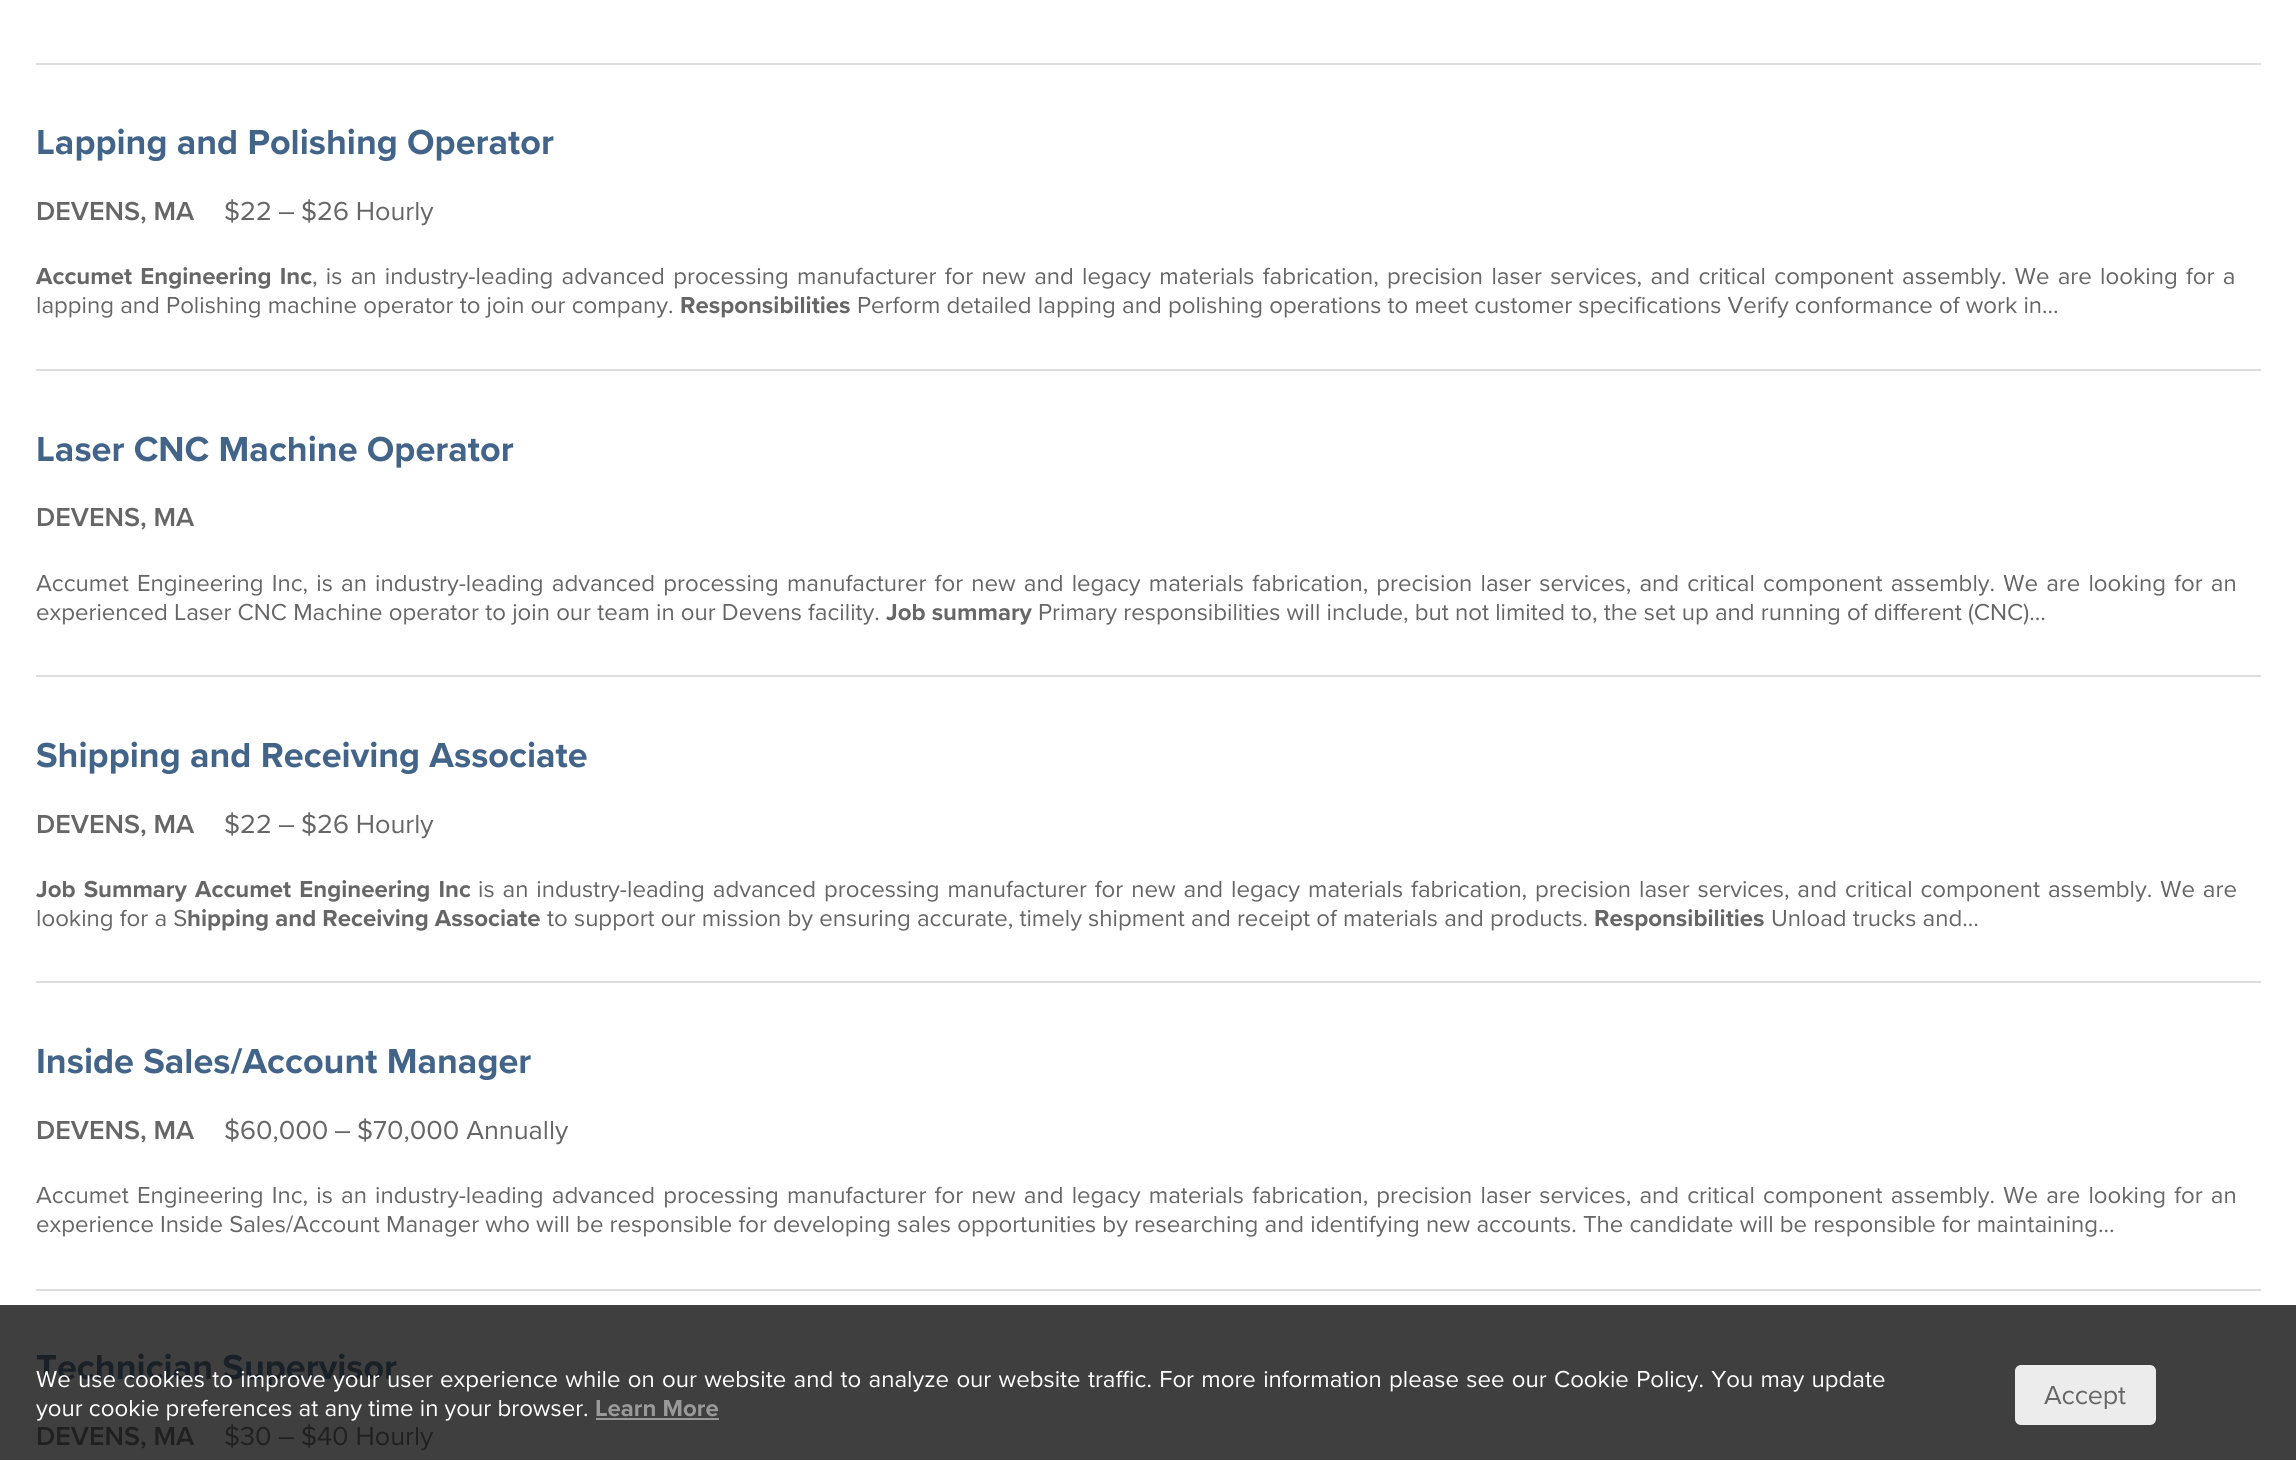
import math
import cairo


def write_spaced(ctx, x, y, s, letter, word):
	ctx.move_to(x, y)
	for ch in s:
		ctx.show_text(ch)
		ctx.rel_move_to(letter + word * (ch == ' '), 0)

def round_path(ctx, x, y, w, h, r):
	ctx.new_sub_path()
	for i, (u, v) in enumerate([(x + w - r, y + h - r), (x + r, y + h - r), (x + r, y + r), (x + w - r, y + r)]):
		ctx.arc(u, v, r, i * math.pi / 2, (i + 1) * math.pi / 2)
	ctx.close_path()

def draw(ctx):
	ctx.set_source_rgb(1, 1, 1)
	ctx.paint()
	ctx.set_source_rgb(0.247, 0.247, 0.247)
	ctx.rectangle(0, 1305, 2296, 155)
	ctx.fill()
	ctx.set_source_rgb(0.867, 0.867, 0.867)
	ctx.rectangle(36, 63, 2225, 2)
	ctx.fill()
	ctx.select_font_face('Proxima Nova', cairo.FONT_SLANT_NORMAL, cairo.FONT_WEIGHT_BOLD)
	ctx.set_font_size(36)
	ctx.set_source_rgb(0.263, 0.392, 0.537)
	ctx.move_to(36, 154)
	ctx.show_text('Lapping and Polishing Operator')
	ctx.select_font_face('Proxima Nova SemiBold')
	ctx.set_font_size(27)
	ctx.set_source_rgb(0.4, 0.4, 0.4)
	ctx.move_to(36, 220)
	ctx.show_text('DEVENS, MA')
	ctx.select_font_face('Proxima Nova')
	ctx.move_to(224, 220)
	ctx.show_text('$22')
	ctx.select_font_face('Liberation Sans')
	ctx.move_to(279, 220)
	ctx.show_text('‒')
	ctx.select_font_face('Proxima Nova')
	ctx.move_to(301, 220)
	ctx.show_text('$26 Hourly')
	ctx.select_font_face('Proxima Nova', cairo.FONT_SLANT_NORMAL, cairo.FONT_WEIGHT_BOLD)
	ctx.set_font_size(24)
	write_spaced(ctx, 36, 284, 'Accumet Engineering Inc', 0, 2.1)
	ctx.select_font_face('Proxima Nova')
	write_spaced(ctx, 312, 284, ', is an industry-leading advanced processing manufacturer for new and legacy materials fabrication, precision laser services, and critical component assembly. We are looking for a', 0, 2.1)
	ctx.move_to(36, 313)
	ctx.show_text('lapping and Polishing machine operator to join our company.')
	ctx.select_font_face('Proxima Nova', cairo.FONT_SLANT_NORMAL, cairo.FONT_WEIGHT_BOLD)
	ctx.move_to(680, 313)
	ctx.show_text('Responsibilities')
	ctx.select_font_face('Proxima Nova')
	ctx.move_to(857, 313)
	ctx.show_text('Perform detailed lapping and polishing operations to meet customer specifications Verify conformance of work in…')
	ctx.set_source_rgb(0.867, 0.867, 0.867)
	ctx.rectangle(36, 369, 2225, 2)
	ctx.fill()
	ctx.select_font_face('Proxima Nova', cairo.FONT_SLANT_NORMAL, cairo.FONT_WEIGHT_BOLD)
	ctx.set_font_size(36)
	ctx.set_source_rgb(0.263, 0.392, 0.537)
	ctx.move_to(36, 461)
	ctx.show_text('Laser CNC Machine Operator')
	ctx.select_font_face('Proxima Nova SemiBold')
	ctx.set_font_size(27)
	ctx.set_source_rgb(0.4, 0.4, 0.4)
	ctx.move_to(36, 526)
	ctx.show_text('DEVENS, MA')
	ctx.select_font_face('Proxima Nova')
	ctx.set_font_size(24)
	write_spaced(ctx, 36, 591, 'Accumet Engineering Inc, is an industry-leading advanced processing manufacturer for new and legacy materials fabrication, precision laser services, and critical component assembly. We are looking for an', 0, 2)
	ctx.move_to(36, 620)
	ctx.show_text('experienced Laser CNC Machine operator to join our team in our Devens facility.')
	ctx.select_font_face('Proxima Nova', cairo.FONT_SLANT_NORMAL, cairo.FONT_WEIGHT_BOLD)
	ctx.move_to(886, 620)
	ctx.show_text('Job summary')
	ctx.select_font_face('Proxima Nova')
	ctx.move_to(1038, 620)
	ctx.show_text('Primary responsibilities will include, but not limited to, the set up and running of different (CNC)…')
	ctx.set_source_rgb(0.867, 0.867, 0.867)
	ctx.rectangle(36, 675, 2225, 2)
	ctx.fill()
	ctx.select_font_face('Proxima Nova', cairo.FONT_SLANT_NORMAL, cairo.FONT_WEIGHT_BOLD)
	ctx.set_font_size(36)
	ctx.set_source_rgb(0.263, 0.392, 0.537)
	ctx.move_to(36, 767)
	ctx.show_text('Shipping and Receiving Associate')
	ctx.select_font_face('Proxima Nova SemiBold')
	ctx.set_font_size(27)
	ctx.set_source_rgb(0.4, 0.4, 0.4)
	ctx.move_to(36, 833)
	ctx.show_text('DEVENS, MA')
	ctx.select_font_face('Proxima Nova')
	ctx.move_to(224, 833)
	ctx.show_text('$22')
	ctx.select_font_face('Liberation Sans')
	ctx.move_to(279, 833)
	ctx.show_text('‒')
	ctx.select_font_face('Proxima Nova')
	ctx.move_to(301, 833)
	ctx.show_text('$26 Hourly')
	ctx.select_font_face('Proxima Nova', cairo.FONT_SLANT_NORMAL, cairo.FONT_WEIGHT_BOLD)
	ctx.set_font_size(24)
	write_spaced(ctx, 36, 897, 'Job Summary', 0, 2)
	write_spaced(ctx, 195, 897, 'Accumet Engineering Inc', 0, 2)
	ctx.select_font_face('Proxima Nova')
	write_spaced(ctx, 478, 897, 'is an industry-leading advanced processing manufacturer for new and legacy materials fabrication, precision laser services, and critical component assembly. We are', 0, 1.75)
	ctx.move_to(36, 926)
	ctx.show_text('looking for a S')
	ctx.select_font_face('Proxima Nova', cairo.FONT_SLANT_NORMAL, cairo.FONT_WEIGHT_BOLD)
	ctx.move_to(187, 926)
	ctx.show_text('hipping and Receiving Associate')
	ctx.select_font_face('Proxima Nova')
	ctx.move_to(547, 926)
	ctx.show_text('to support our mission by ensuring accurate, timely shipment and receipt of materials and products.')
	ctx.select_font_face('Proxima Nova', cairo.FONT_SLANT_NORMAL, cairo.FONT_WEIGHT_BOLD)
	ctx.move_to(1594, 926)
	ctx.show_text('Responsibilities')
	ctx.select_font_face('Proxima Nova')
	ctx.move_to(1771, 926)
	ctx.show_text('Unload trucks and…')
	ctx.set_source_rgb(0.867, 0.867, 0.867)
	ctx.rectangle(36, 981, 2225, 2)
	ctx.fill()
	ctx.select_font_face('Proxima Nova', cairo.FONT_SLANT_NORMAL, cairo.FONT_WEIGHT_BOLD)
	ctx.set_font_size(36)
	ctx.set_source_rgb(0.263, 0.392, 0.537)
	ctx.move_to(36, 1073)
	ctx.show_text('Inside Sales/Account Manager')
	ctx.select_font_face('Proxima Nova SemiBold')
	ctx.set_font_size(27)
	ctx.set_source_rgb(0.4, 0.4, 0.4)
	ctx.move_to(36, 1139)
	ctx.show_text('DEVENS, MA')
	ctx.select_font_face('Proxima Nova')
	ctx.move_to(224, 1139)
	ctx.show_text('$60,000')
	ctx.select_font_face('Liberation Sans')
	ctx.move_to(335, 1139)
	ctx.show_text('‒')
	ctx.select_font_face('Proxima Nova')
	ctx.move_to(357, 1139)
	ctx.show_text('$70,000 Annually')
	ctx.set_font_size(24)
	write_spaced(ctx, 36, 1203, 'Accumet Engineering Inc, is an industry-leading advanced processing manufacturer for new and legacy materials fabrication, precision laser services, and critical component assembly. We are looking for an', 0, 2)
	ctx.move_to(36, 1232)
	ctx.show_text('experience Inside Sales/Account Manager who will be responsible for developing sales opportunities by researching and identifying new accounts. The candidate will be responsible for maintaining…')
	ctx.set_source_rgb(0.867, 0.867, 0.867)
	ctx.rectangle(36, 1289, 2225, 2)
	ctx.fill()
	ctx.select_font_face('Proxima Nova', cairo.FONT_SLANT_NORMAL, cairo.FONT_WEIGHT_BOLD)
	ctx.set_font_size(36)
	ctx.set_source_rgb(0.098, 0.125, 0.153)
	ctx.move_to(36, 1379)
	ctx.show_text('Technician Supervisor')
	ctx.select_font_face('Proxima Nova SemiBold')
	ctx.set_font_size(27)
	ctx.set_source_rgb(0.125, 0.125, 0.125)
	ctx.move_to(36, 1445)
	ctx.show_text('DEVENS, MA')
	ctx.select_font_face('Proxima Nova')
	ctx.move_to(224, 1445)
	ctx.show_text('$30')
	ctx.select_font_face('Liberation Sans')
	ctx.move_to(279, 1445)
	ctx.show_text('‒')
	ctx.select_font_face('Proxima Nova')
	ctx.move_to(301, 1445)
	ctx.show_text('$40 Hourly')
	ctx.set_font_size(24)
	ctx.set_source_rgb(1, 1, 1)
	write_spaced(ctx, 36, 1387, 'We use cookies to improve your user experience while on our website and to analyze our website traffic. For more information please see our Cookie Policy. You may update', 0, 1.1)
	ctx.move_to(36, 1416)
	ctx.show_text('your cookie preferences at any time in your browser.')
	ctx.select_font_face('Proxima Nova', cairo.FONT_SLANT_NORMAL, cairo.FONT_WEIGHT_BOLD)
	ctx.set_source_rgb(0.6, 0.6, 0.6)
	ctx.move_to(595, 1416)
	ctx.show_text('Learn More')
	ctx.rectangle(596, 1418, 123, 2)
	ctx.fill()
	ctx.set_source_rgb(0.922, 0.922, 0.922)
	round_path(ctx, 2015, 1365, 141, 60, 6)
	ctx.fill()
	ctx.select_font_face('Proxima Nova')
	ctx.set_font_size(27)
	ctx.set_source_rgb(0.4, 0.4, 0.4)
	write_spaced(ctx, 2044, 1404, 'Accept', -0.25, 0)


surface = cairo.ImageSurface(cairo.FORMAT_RGB24, 2296, 1460)
ctx = cairo.Context(surface)
options = cairo.FontOptions()
options.set_hint_metrics(cairo.HINT_METRICS_OFF)
options.set_hint_style(cairo.HINT_STYLE_NONE)
ctx.set_font_options(options)
ctx.set_miter_limit(4)
draw(ctx)
surface.write_to_png('image.png')
